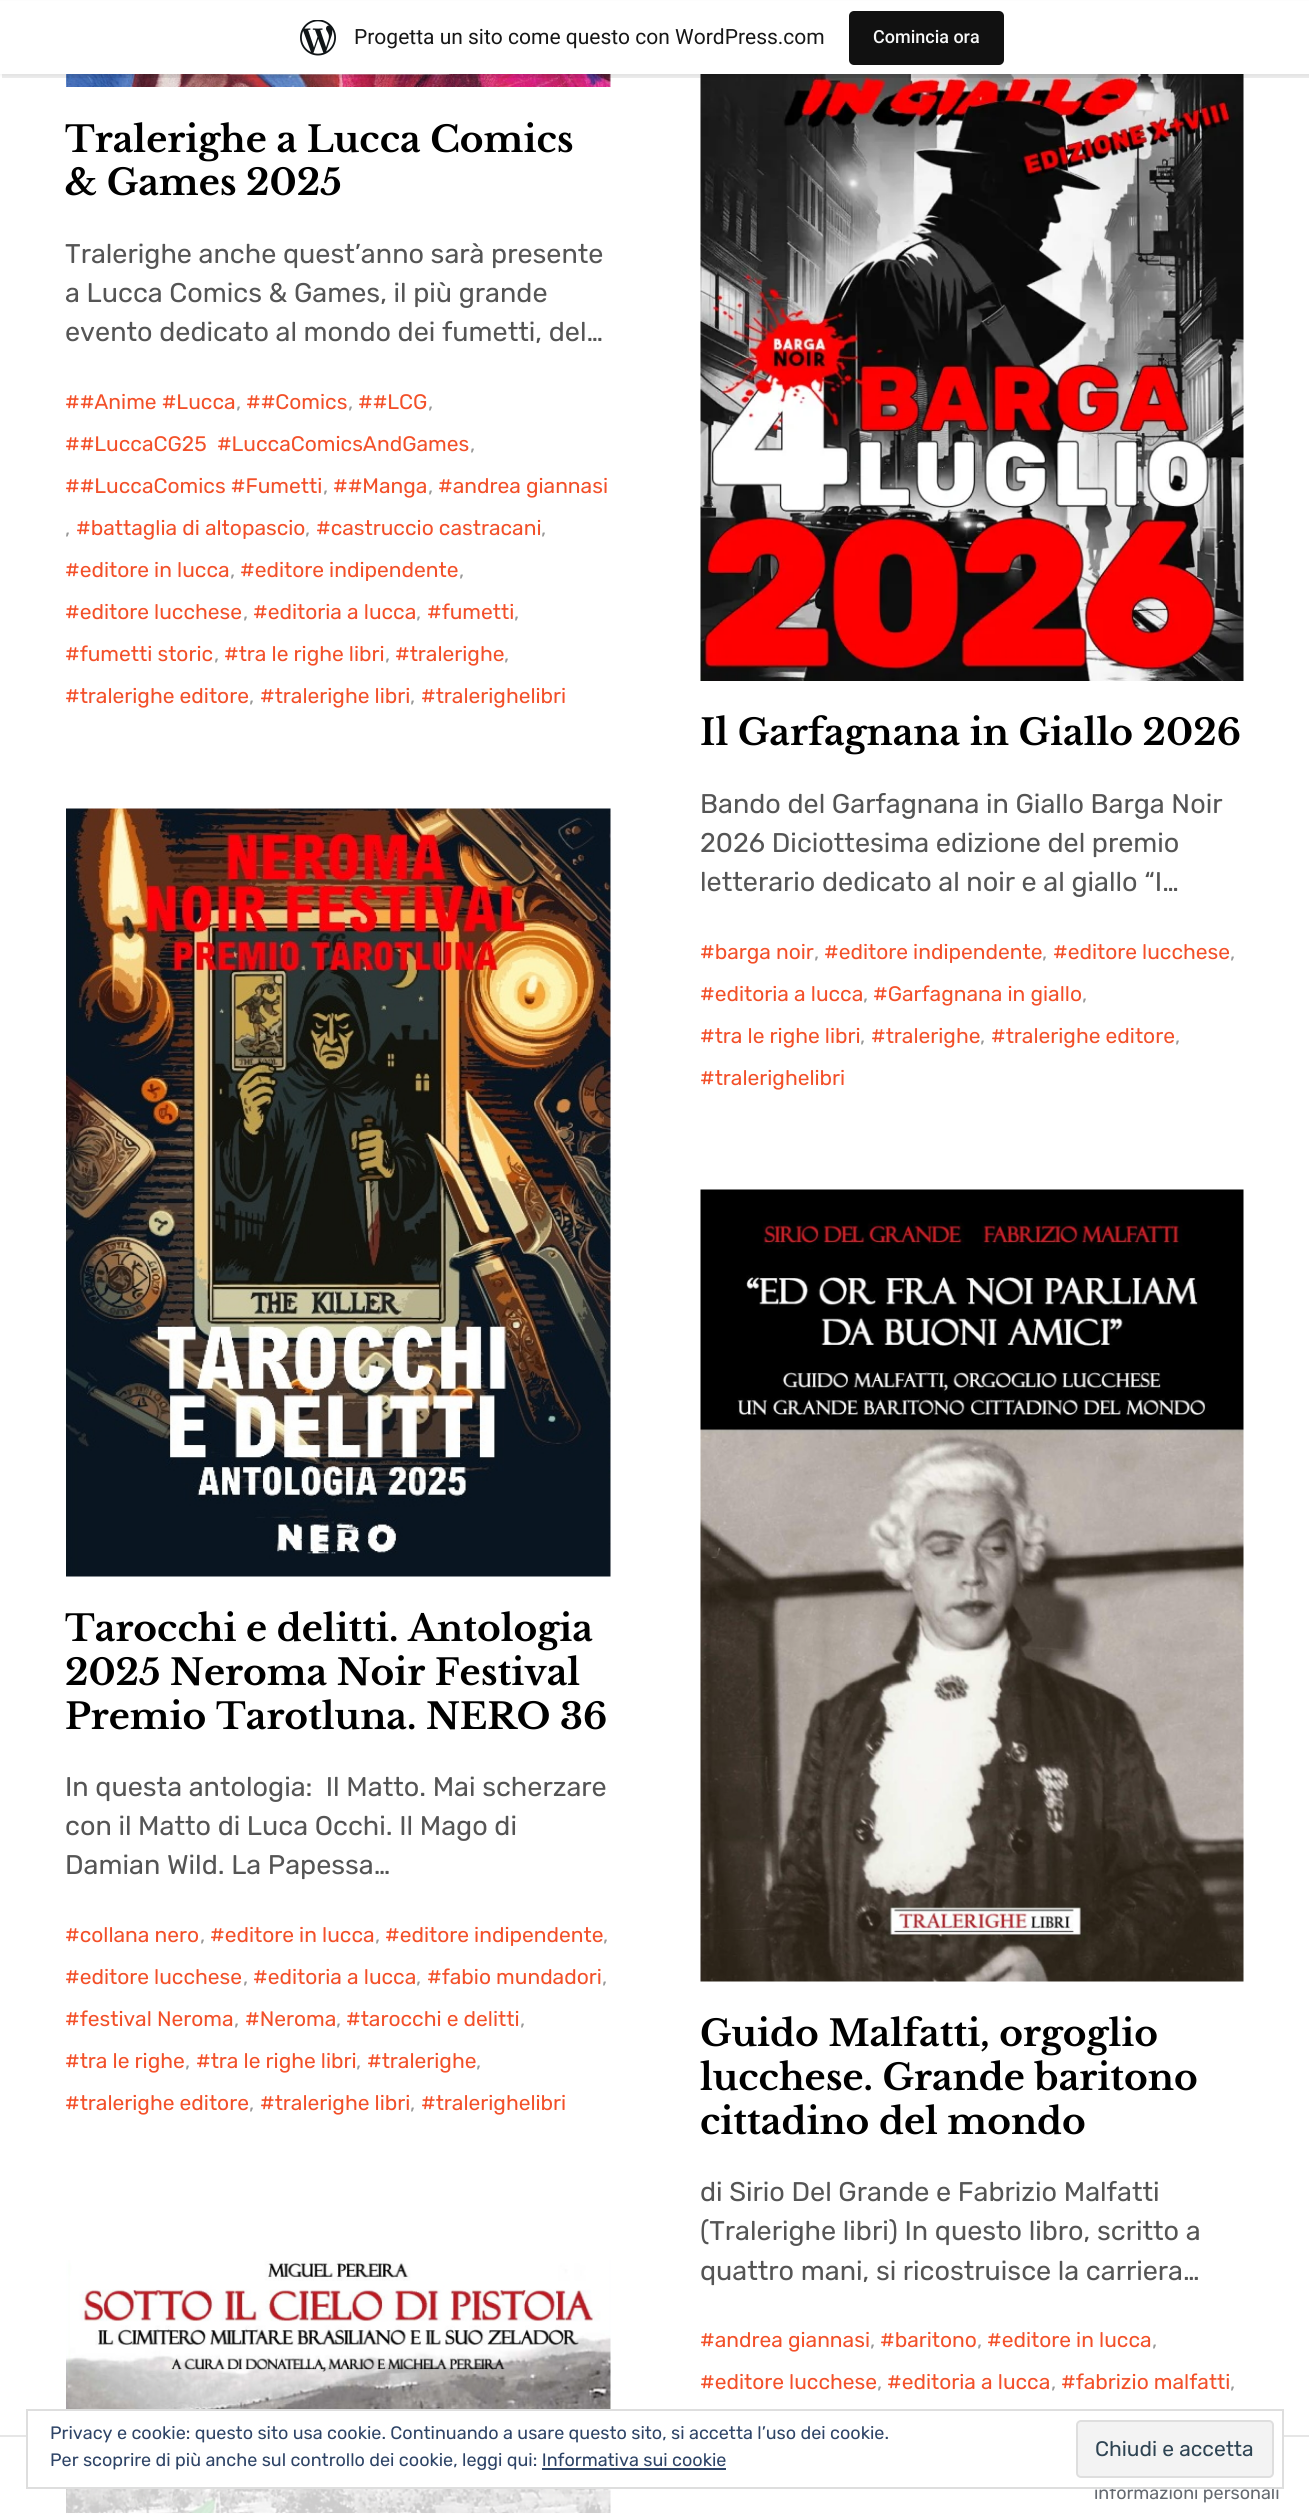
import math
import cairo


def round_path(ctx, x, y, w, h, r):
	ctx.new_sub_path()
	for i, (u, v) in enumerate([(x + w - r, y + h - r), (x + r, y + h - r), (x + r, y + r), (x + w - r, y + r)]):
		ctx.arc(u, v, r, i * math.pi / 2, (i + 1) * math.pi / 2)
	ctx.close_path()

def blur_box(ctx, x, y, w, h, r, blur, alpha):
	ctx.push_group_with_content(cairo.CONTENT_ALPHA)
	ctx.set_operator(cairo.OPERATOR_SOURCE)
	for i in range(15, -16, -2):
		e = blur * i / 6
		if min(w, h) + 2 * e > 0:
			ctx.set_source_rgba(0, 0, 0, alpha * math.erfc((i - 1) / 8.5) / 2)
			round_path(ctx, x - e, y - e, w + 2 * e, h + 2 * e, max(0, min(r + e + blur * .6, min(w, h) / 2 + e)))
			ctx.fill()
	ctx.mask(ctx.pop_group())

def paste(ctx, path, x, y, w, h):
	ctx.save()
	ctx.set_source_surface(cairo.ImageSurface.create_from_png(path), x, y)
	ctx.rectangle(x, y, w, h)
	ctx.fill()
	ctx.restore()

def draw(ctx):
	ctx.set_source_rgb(1, 1, 1)
	ctx.paint()
	paste(ctx, 'media/2.png', 66, 74, 545, 13)
	paste(ctx, 'media/3.png', 700, 74, 544, 607)
	ctx.set_source_rgb(0, 0, 0)
	blur_box(ctx, 0, 2, 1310, 73, 0, 1.5, 0.05)
	ctx.set_source_rgba(0, 0, 0, 0.08)
	ctx.new_path()
	ctx.move_to(2, 74)
	ctx.line_to(2, 78)
	ctx.line_to(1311, 78)
	ctx.line_to(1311, 5)
	ctx.line_to(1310, 5)
	ctx.line_to(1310, 74)
	ctx.close_path()
	ctx.fill()
	ctx.set_source_rgb(1, 1, 1)
	ctx.rectangle(0, 1, 1309, 73)
	ctx.fill()
	paste(ctx, 'media/1.png', 300, 20, 36, 36)
	ctx.select_font_face('Roboto')
	ctx.set_font_size(21)
	ctx.set_source_rgb(0.09, 0.09, 0.09)
	ctx.move_to(354, 44)
	ctx.show_text('Progetta un sito come questo con WordPress.com')
	ctx.set_source_rgb(0.067, 0.067, 0.067)
	round_path(ctx, 849, 11, 155, 54, 5)
	ctx.fill()
	ctx.select_font_face('Roboto Medium')
	ctx.set_font_size(18)
	ctx.set_source_rgb(0.965, 0.969, 0.969)
	ctx.move_to(873, 43)
	ctx.show_text('Comincia ora')
	ctx.select_font_face('Libre Baskerville', cairo.FONT_SLANT_NORMAL, cairo.FONT_WEIGHT_BOLD)
	ctx.set_font_size(36)
	ctx.set_source_rgb(0, 0, 0)
	ctx.move_to(65, 152)
	ctx.show_text('Tralerighe a Lucca Comics')
	ctx.move_to(65, 195)
	ctx.show_text('& Games 2025')
	ctx.select_font_face('Rubik')
	ctx.set_font_size(27)
	ctx.set_source_rgb(0.333, 0.333, 0.333)
	for x, y, s in [
		(65, 263, 'Tralerighe anche quest’anno sarà presente'),
		(65, 302, 'a Lucca Comics & Games, il più grande'),
		(65, 341, 'evento dedicato al mondo dei fumetti, del…'),
	]:
		ctx.move_to(x, y)
		ctx.show_text(s)
	ctx.set_font_size(21)
	ctx.set_source_rgb(0.953, 0.314, 0.161)
	ctx.move_to(65, 409)
	ctx.show_text('##Anime #Lucca')
	ctx.set_source_rgb(0.6, 0.6, 0.6)
	ctx.move_to(236, 409)
	ctx.show_text(',')
	ctx.set_source_rgb(0.953, 0.314, 0.161)
	ctx.move_to(246, 409)
	ctx.show_text('##Comics')
	ctx.set_source_rgb(0.6, 0.6, 0.6)
	ctx.move_to(348, 409)
	ctx.show_text(',')
	ctx.set_source_rgb(0.953, 0.314, 0.161)
	ctx.move_to(358, 409)
	ctx.show_text('##LCG')
	ctx.set_source_rgb(0.6, 0.6, 0.6)
	ctx.move_to(428, 409)
	ctx.show_text(',')
	ctx.set_source_rgb(0.953, 0.314, 0.161)
	ctx.move_to(65, 451)
	ctx.show_text('##LuccaCG25  #LuccaComicsAndGames')
	ctx.set_source_rgb(0.6, 0.6, 0.6)
	ctx.move_to(470, 451)
	ctx.show_text(',')
	ctx.set_source_rgb(0.953, 0.314, 0.161)
	ctx.move_to(65, 493)
	ctx.show_text('##LuccaComics #Fumetti')
	ctx.set_source_rgb(0.6, 0.6, 0.6)
	ctx.move_to(323, 493)
	ctx.show_text(',')
	ctx.set_source_rgb(0.953, 0.314, 0.161)
	ctx.move_to(333, 493)
	ctx.show_text('##Manga')
	ctx.set_source_rgb(0.6, 0.6, 0.6)
	ctx.move_to(428, 493)
	ctx.show_text(',')
	ctx.set_source_rgb(0.953, 0.314, 0.161)
	ctx.move_to(438, 493)
	ctx.show_text('#andrea giannasi')
	ctx.set_source_rgb(0.6, 0.6, 0.6)
	ctx.move_to(65, 535)
	ctx.show_text(',')
	ctx.set_source_rgb(0.953, 0.314, 0.161)
	ctx.move_to(76, 535)
	ctx.show_text('#battaglia di altopascio')
	ctx.set_source_rgb(0.6, 0.6, 0.6)
	ctx.move_to(305, 535)
	ctx.show_text(',')
	ctx.set_source_rgb(0.953, 0.314, 0.161)
	ctx.move_to(316, 535)
	ctx.show_text('#castruccio castracani')
	ctx.set_source_rgb(0.6, 0.6, 0.6)
	ctx.move_to(541, 535)
	ctx.show_text(',')
	ctx.set_source_rgb(0.953, 0.314, 0.161)
	ctx.move_to(65, 577)
	ctx.show_text('#editore in lucca')
	ctx.set_source_rgb(0.6, 0.6, 0.6)
	ctx.move_to(230, 577)
	ctx.show_text(',')
	ctx.set_source_rgb(0.953, 0.314, 0.161)
	ctx.move_to(240, 577)
	ctx.show_text('#editore indipendente')
	ctx.set_source_rgb(0.6, 0.6, 0.6)
	ctx.move_to(459, 577)
	ctx.show_text(',')
	ctx.set_source_rgb(0.953, 0.314, 0.161)
	ctx.move_to(65, 619)
	ctx.show_text('#editore lucchese')
	ctx.set_source_rgb(0.6, 0.6, 0.6)
	ctx.move_to(243, 619)
	ctx.show_text(',')
	ctx.set_source_rgb(0.953, 0.314, 0.161)
	ctx.move_to(253, 619)
	ctx.show_text('#editoria a lucca')
	ctx.set_source_rgb(0.6, 0.6, 0.6)
	ctx.move_to(416, 619)
	ctx.show_text(',')
	ctx.set_source_rgb(0.953, 0.314, 0.161)
	ctx.move_to(427, 619)
	ctx.show_text('#fumetti')
	ctx.set_source_rgb(0.6, 0.6, 0.6)
	ctx.move_to(514, 619)
	ctx.show_text(',')
	ctx.set_source_rgb(0.953, 0.314, 0.161)
	ctx.move_to(65, 661)
	ctx.show_text('#fumetti storic')
	ctx.set_source_rgb(0.6, 0.6, 0.6)
	ctx.move_to(214, 661)
	ctx.show_text(',')
	ctx.set_source_rgb(0.953, 0.314, 0.161)
	ctx.move_to(224, 661)
	ctx.show_text('#tra le righe libri')
	ctx.set_source_rgb(0.6, 0.6, 0.6)
	ctx.move_to(385, 661)
	ctx.show_text(',')
	ctx.set_source_rgb(0.953, 0.314, 0.161)
	ctx.move_to(395, 661)
	ctx.show_text('#tralerighe')
	ctx.set_source_rgb(0.6, 0.6, 0.6)
	ctx.move_to(504, 661)
	ctx.show_text(',')
	ctx.set_source_rgb(0.953, 0.314, 0.161)
	ctx.move_to(65, 703)
	ctx.show_text('#tralerighe editore')
	ctx.set_source_rgb(0.6, 0.6, 0.6)
	ctx.move_to(249, 703)
	ctx.show_text(',')
	ctx.set_source_rgb(0.953, 0.314, 0.161)
	ctx.move_to(260, 703)
	ctx.show_text('#tralerighe libri')
	ctx.set_source_rgb(0.6, 0.6, 0.6)
	ctx.move_to(410, 703)
	ctx.show_text(',')
	ctx.set_source_rgb(0.953, 0.314, 0.161)
	ctx.move_to(421, 703)
	ctx.show_text('#tralerighelibri')
	ctx.select_font_face('Libre Baskerville', cairo.FONT_SLANT_NORMAL, cairo.FONT_WEIGHT_BOLD)
	ctx.set_font_size(36)
	ctx.set_source_rgb(0, 0, 0)
	ctx.move_to(700, 745)
	ctx.show_text('Il Garfagnana in Giallo 2026')
	ctx.select_font_face('Rubik')
	ctx.set_font_size(27)
	ctx.set_source_rgb(0.333, 0.333, 0.333)
	for x, y, s in [
		(700, 813, 'Bando del Garfagnana in Giallo Barga Noir'),
		(700, 852, '2026 Diciottesima edizione del premio'),
		(700, 891, 'letterario dedicato al noir e al giallo “I…'),
	]:
		ctx.move_to(x, y)
		ctx.show_text(s)
	ctx.set_font_size(21)
	ctx.set_source_rgb(0.953, 0.314, 0.161)
	ctx.move_to(700, 959)
	ctx.show_text('#barga noir')
	ctx.set_source_rgb(0.6, 0.6, 0.6)
	ctx.move_to(814, 959)
	ctx.show_text(',')
	ctx.set_source_rgb(0.953, 0.314, 0.161)
	ctx.move_to(824, 959)
	ctx.show_text('#editore indipendente')
	ctx.set_source_rgb(0.6, 0.6, 0.6)
	ctx.move_to(1042, 959)
	ctx.show_text(',')
	ctx.set_source_rgb(0.953, 0.314, 0.161)
	ctx.move_to(1053, 959)
	ctx.show_text('#editore lucchese')
	ctx.set_source_rgb(0.6, 0.6, 0.6)
	ctx.move_to(1230, 959)
	ctx.show_text(',')
	ctx.set_source_rgb(0.953, 0.314, 0.161)
	ctx.move_to(700, 1001)
	ctx.show_text('#editoria a lucca')
	ctx.set_source_rgb(0.6, 0.6, 0.6)
	ctx.move_to(863, 1001)
	ctx.show_text(',')
	ctx.set_source_rgb(0.953, 0.314, 0.161)
	ctx.move_to(873, 1001)
	ctx.show_text('#Garfagnana in giallo')
	ctx.set_source_rgb(0.6, 0.6, 0.6)
	ctx.move_to(1082, 1001)
	ctx.show_text(',')
	ctx.set_source_rgb(0.953, 0.314, 0.161)
	ctx.move_to(700, 1043)
	ctx.show_text('#tra le righe libri')
	ctx.set_source_rgb(0.6, 0.6, 0.6)
	ctx.move_to(860, 1043)
	ctx.show_text(',')
	ctx.set_source_rgb(0.953, 0.314, 0.161)
	ctx.move_to(871, 1043)
	ctx.show_text('#tralerighe')
	ctx.set_source_rgb(0.6, 0.6, 0.6)
	ctx.move_to(980, 1043)
	ctx.show_text(',')
	ctx.set_source_rgb(0.953, 0.314, 0.161)
	ctx.move_to(991, 1043)
	ctx.show_text('#tralerighe editore')
	ctx.set_source_rgb(0.6, 0.6, 0.6)
	ctx.move_to(1175, 1043)
	ctx.show_text(',')
	ctx.set_source_rgb(0.953, 0.314, 0.161)
	ctx.move_to(700, 1085)
	ctx.show_text('#tralerighelibri')
	paste(ctx, 'media/4.png', 66, 808, 545, 769)
	ctx.select_font_face('Libre Baskerville', cairo.FONT_SLANT_NORMAL, cairo.FONT_WEIGHT_BOLD)
	ctx.set_font_size(36)
	ctx.set_source_rgb(0, 0, 0)
	for x, y, s in [
		(65, 1641, 'Tarocchi e delitti. Antologia'),
		(65, 1685, '2025 Neroma Noir Festival'),
		(65, 1729, 'Premio Tarotluna. NERO 36'),
	]:
		ctx.move_to(x, y)
		ctx.show_text(s)
	ctx.select_font_face('Rubik')
	ctx.set_font_size(27)
	ctx.set_source_rgb(0.333, 0.333, 0.333)
	for x, y, s in [
		(65, 1796, 'In questa antologia:  Il Matto. Mai scherzare'),
		(65, 1835, 'con il Matto di Luca Occhi. Il Mago di'),
		(65, 1874, 'Damian Wild. La Papessa…'),
	]:
		ctx.move_to(x, y)
		ctx.show_text(s)
	ctx.set_font_size(21)
	ctx.set_source_rgb(0.953, 0.314, 0.161)
	ctx.move_to(65, 1942)
	ctx.show_text('#collana nero')
	ctx.set_source_rgb(0.6, 0.6, 0.6)
	ctx.move_to(200, 1942)
	ctx.show_text(',')
	ctx.set_source_rgb(0.953, 0.314, 0.161)
	ctx.move_to(210, 1942)
	ctx.show_text('#editore in lucca')
	ctx.set_source_rgb(0.6, 0.6, 0.6)
	ctx.move_to(375, 1942)
	ctx.show_text(',')
	ctx.set_source_rgb(0.953, 0.314, 0.161)
	ctx.move_to(385, 1942)
	ctx.show_text('#editore indipendente')
	ctx.set_source_rgb(0.6, 0.6, 0.6)
	ctx.move_to(603, 1942)
	ctx.show_text(',')
	ctx.set_source_rgb(0.953, 0.314, 0.161)
	ctx.move_to(65, 1984)
	ctx.show_text('#editore lucchese')
	ctx.set_source_rgb(0.6, 0.6, 0.6)
	ctx.move_to(243, 1984)
	ctx.show_text(',')
	ctx.set_source_rgb(0.953, 0.314, 0.161)
	ctx.move_to(253, 1984)
	ctx.show_text('#editoria a lucca')
	ctx.set_source_rgb(0.6, 0.6, 0.6)
	ctx.move_to(416, 1984)
	ctx.show_text(',')
	ctx.set_source_rgb(0.953, 0.314, 0.161)
	ctx.move_to(427, 1984)
	ctx.show_text('#fabio mundadori')
	ctx.set_source_rgb(0.6, 0.6, 0.6)
	ctx.move_to(602, 1984)
	ctx.show_text(',')
	ctx.set_source_rgb(0.953, 0.314, 0.161)
	ctx.move_to(65, 2026)
	ctx.show_text('#festival Neroma')
	ctx.set_source_rgb(0.6, 0.6, 0.6)
	ctx.move_to(234, 2026)
	ctx.show_text(',')
	ctx.set_source_rgb(0.953, 0.314, 0.161)
	ctx.move_to(245, 2026)
	ctx.show_text('#Neroma')
	ctx.set_source_rgb(0.6, 0.6, 0.6)
	ctx.move_to(336, 2026)
	ctx.show_text(',')
	ctx.set_source_rgb(0.953, 0.314, 0.161)
	ctx.move_to(346, 2026)
	ctx.show_text('#tarocchi e delitti')
	ctx.set_source_rgb(0.6, 0.6, 0.6)
	ctx.move_to(520, 2026)
	ctx.show_text(',')
	ctx.set_source_rgb(0.953, 0.314, 0.161)
	ctx.move_to(65, 2068)
	ctx.show_text('#tra le righe')
	ctx.set_source_rgb(0.6, 0.6, 0.6)
	ctx.move_to(185, 2068)
	ctx.show_text(',')
	ctx.set_source_rgb(0.953, 0.314, 0.161)
	ctx.move_to(196, 2068)
	ctx.show_text('#tra le righe libri')
	ctx.set_source_rgb(0.6, 0.6, 0.6)
	ctx.move_to(356, 2068)
	ctx.show_text(',')
	ctx.set_source_rgb(0.953, 0.314, 0.161)
	ctx.move_to(367, 2068)
	ctx.show_text('#tralerighe')
	ctx.set_source_rgb(0.6, 0.6, 0.6)
	ctx.move_to(476, 2068)
	ctx.show_text(',')
	ctx.set_source_rgb(0.953, 0.314, 0.161)
	ctx.move_to(65, 2110)
	ctx.show_text('#tralerighe editore')
	ctx.set_source_rgb(0.6, 0.6, 0.6)
	ctx.move_to(249, 2110)
	ctx.show_text(',')
	ctx.set_source_rgb(0.953, 0.314, 0.161)
	ctx.move_to(260, 2110)
	ctx.show_text('#tralerighe libri')
	ctx.set_source_rgb(0.6, 0.6, 0.6)
	ctx.move_to(410, 2110)
	ctx.show_text(',')
	ctx.set_source_rgb(0.953, 0.314, 0.161)
	ctx.move_to(421, 2110)
	ctx.show_text('#tralerighelibri')
	paste(ctx, 'media/5.png', 66, 2260, 545, 253)
	paste(ctx, 'media/6.png', 700, 1189, 544, 793)
	ctx.select_font_face('Libre Baskerville', cairo.FONT_SLANT_NORMAL, cairo.FONT_WEIGHT_BOLD)
	ctx.set_font_size(36)
	ctx.set_source_rgb(0, 0, 0)
	for x, y, s in [
		(700, 2046, 'Guido Malfatti, orgoglio'),
		(700, 2090, 'lucchese. Grande baritono'),
		(700, 2134, 'cittadino del mondo'),
	]:
		ctx.move_to(x, y)
		ctx.show_text(s)
	ctx.select_font_face('Rubik')
	ctx.set_font_size(27)
	ctx.set_source_rgb(0.333, 0.333, 0.333)
	for x, y, s in [
		(700, 2201, 'di Sirio Del Grande e Fabrizio Malfatti'),
		(700, 2240, '(Tralerighe libri) In questo libro, scritto a'),
		(700, 2280, 'quattro mani, si ricostruisce la carriera…'),
	]:
		ctx.move_to(x, y)
		ctx.show_text(s)
	ctx.set_font_size(21)
	ctx.set_source_rgb(0.953, 0.314, 0.161)
	ctx.move_to(700, 2347)
	ctx.show_text('#andrea giannasi')
	ctx.set_source_rgb(0.6, 0.6, 0.6)
	ctx.move_to(870, 2347)
	ctx.show_text(',')
	ctx.set_source_rgb(0.953, 0.314, 0.161)
	ctx.move_to(880, 2347)
	ctx.show_text('#baritono')
	ctx.set_source_rgb(0.6, 0.6, 0.6)
	ctx.move_to(977, 2347)
	ctx.show_text(',')
	ctx.set_source_rgb(0.953, 0.314, 0.161)
	ctx.move_to(987, 2347)
	ctx.show_text('#editore in lucca')
	ctx.set_source_rgb(0.6, 0.6, 0.6)
	ctx.move_to(1152, 2347)
	ctx.show_text(',')
	ctx.set_source_rgb(0.953, 0.314, 0.161)
	ctx.move_to(700, 2389)
	ctx.show_text('#editore lucchese')
	ctx.set_source_rgb(0.6, 0.6, 0.6)
	ctx.move_to(877, 2389)
	ctx.show_text(',')
	ctx.set_source_rgb(0.953, 0.314, 0.161)
	ctx.move_to(887, 2389)
	ctx.show_text('#editoria a lucca')
	ctx.set_source_rgb(0.6, 0.6, 0.6)
	ctx.move_to(1051, 2389)
	ctx.show_text(',')
	ctx.set_source_rgb(0.953, 0.314, 0.161)
	ctx.move_to(1061, 2389)
	ctx.show_text('#fabrizio malfatti')
	ctx.set_source_rgb(0.6, 0.6, 0.6)
	ctx.move_to(1230, 2389)
	ctx.show_text(',')
	ctx.set_source_rgba(1, 1, 1, 0.8)
	ctx.rectangle(66, 2435, 545, 78)
	ctx.fill()
	ctx.set_source_rgba(0, 0, 0, 0.1)
	ctx.rectangle(0, 2435, 1309, 2)
	ctx.fill()
	ctx.set_font_size(18)
	ctx.set_source_rgb(0.392, 0.412, 0.439)
	ctx.move_to(1094, 2499)
	ctx.show_text('informazioni personali')
	ctx.set_source_rgb(1, 1, 1)
	ctx.rectangle(27, 2410, 1256, 78)
	ctx.fill_preserve()
	ctx.set_source_rgb(0.871, 0.871, 0.871)
	ctx.stroke()
	ctx.set_source_rgb(0.18, 0.267, 0.404)
	ctx.move_to(50, 2439)
	ctx.show_text('Privacy e cookie: questo sito usa cookie. Continuando a usare questo sito, si accetta l’uso dei cookie.')
	ctx.set_source_rgb(0.953, 0.953, 0.953)
	round_path(ctx, 1077, 2421, 196, 56, 4)
	ctx.fill_preserve()
	ctx.set_source_rgb(0.871, 0.871, 0.871)
	ctx.stroke()
	ctx.set_font_size(21)
	ctx.set_source_rgb(0.18, 0.267, 0.325)
	ctx.move_to(1095, 2456)
	ctx.show_text('Chiudi e accetta')
	ctx.set_font_size(18)
	ctx.set_source_rgb(0.18, 0.267, 0.404)
	ctx.move_to(50, 2466)
	ctx.show_text('Per scoprire di più anche sul controllo dei cookie, leggi qui: Informativa sui cookie')
	ctx.rectangle(542, 2468, 184, 2)
	ctx.fill()


surface = cairo.ImageSurface(cairo.FORMAT_RGB24, 1309, 2513)
ctx = cairo.Context(surface)
options = cairo.FontOptions()
options.set_hint_metrics(cairo.HINT_METRICS_OFF)
options.set_hint_style(cairo.HINT_STYLE_NONE)
ctx.set_font_options(options)
ctx.set_miter_limit(4)
draw(ctx)
surface.write_to_png('image.png')
